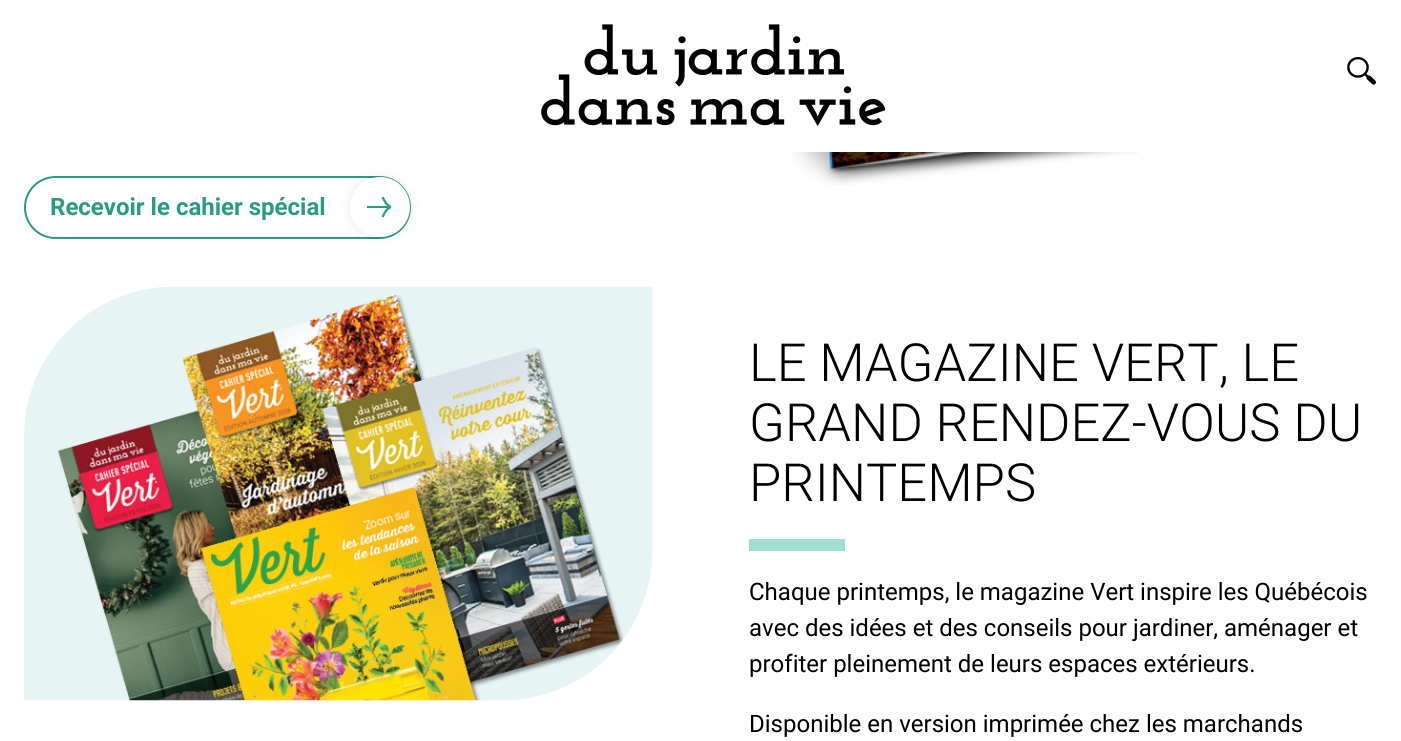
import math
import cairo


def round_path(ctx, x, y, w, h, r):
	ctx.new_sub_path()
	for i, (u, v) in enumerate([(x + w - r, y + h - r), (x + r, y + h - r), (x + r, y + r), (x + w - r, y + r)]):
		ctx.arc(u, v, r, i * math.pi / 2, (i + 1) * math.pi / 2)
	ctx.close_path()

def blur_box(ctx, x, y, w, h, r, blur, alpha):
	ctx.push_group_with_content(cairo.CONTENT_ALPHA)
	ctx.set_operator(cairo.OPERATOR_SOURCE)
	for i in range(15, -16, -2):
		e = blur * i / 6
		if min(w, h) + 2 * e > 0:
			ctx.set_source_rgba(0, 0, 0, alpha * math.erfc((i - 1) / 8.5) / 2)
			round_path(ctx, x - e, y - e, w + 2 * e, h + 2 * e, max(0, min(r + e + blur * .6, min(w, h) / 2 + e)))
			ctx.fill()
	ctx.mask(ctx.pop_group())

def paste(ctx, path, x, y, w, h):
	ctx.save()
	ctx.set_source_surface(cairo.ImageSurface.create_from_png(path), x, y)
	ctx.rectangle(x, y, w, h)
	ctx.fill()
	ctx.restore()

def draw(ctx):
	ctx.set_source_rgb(1, 1, 1)
	ctx.paint()
	paste(ctx, 'media/1.png', 541, 24, 344, 102)
	paste(ctx, 'media/2.png', 1347, 57, 29, 28)
	paste(ctx, 'media/3.png', 792, 152, 347, 33)
	round_path(ctx, 25, 177, 385, 61, 30.5)
	ctx.set_source_rgb(0.157, 0.608, 0.518)
	ctx.stroke()
	ctx.select_font_face('Roboto', cairo.FONT_SLANT_NORMAL, cairo.FONT_WEIGHT_BOLD)
	ctx.set_font_size(24)
	ctx.move_to(50, 215)
	ctx.show_text('Recevoir le cahier spécial')
	ctx.set_source_rgb(0, 0, 0)
	blur_box(ctx, 350, 177, 60, 60, 30, 5, 0.09)
	ctx.set_source_rgb(1, 1, 1)
	ctx.arc(380, 207, 30, 0, 2 * math.pi)
	ctx.fill()
	paste(ctx, 'media/4.png', 367, 197, 25, 21)
	paste(ctx, 'media/5.png', 24, 286, 629, 415)
	ctx.select_font_face('Roboto Light')
	ctx.set_font_size(52.5)
	ctx.set_source_rgb(0, 0, 0)
	for x, y, s in [
		(749, 381, 'LE MAGAZINE VERT, LE'),
		(749, 441, 'GRAND RENDEZ-VOUS DU'),
		(749, 501, 'PRINTEMPS'),
	]:
		ctx.move_to(x, y)
		ctx.show_text(s)
	ctx.set_source_rgb(0.627, 0.878, 0.827)
	ctx.rectangle(749, 539, 96, 12)
	ctx.fill()
	ctx.select_font_face('Roboto')
	ctx.set_font_size(24)
	ctx.set_source_rgb(0, 0, 0)
	for x, y, s in [
		(749, 600, 'Chaque printemps, le magazine Vert inspire les Québécois'),
		(749, 636, 'avec des idées et des conseils pour jardiner, aménager et'),
		(749, 672, 'profiter pleinement de leurs espaces extérieurs.'),
		(749, 732, 'Disponible en version imprimée chez les marchands'),
	]:
		ctx.move_to(x, y)
		ctx.show_text(s)


surface = cairo.ImageSurface(cairo.FORMAT_RGB24, 1401, 741)
ctx = cairo.Context(surface)
options = cairo.FontOptions()
options.set_hint_metrics(cairo.HINT_METRICS_OFF)
options.set_hint_style(cairo.HINT_STYLE_NONE)
ctx.set_font_options(options)
ctx.set_miter_limit(4)
draw(ctx)
surface.write_to_png('image.png')
